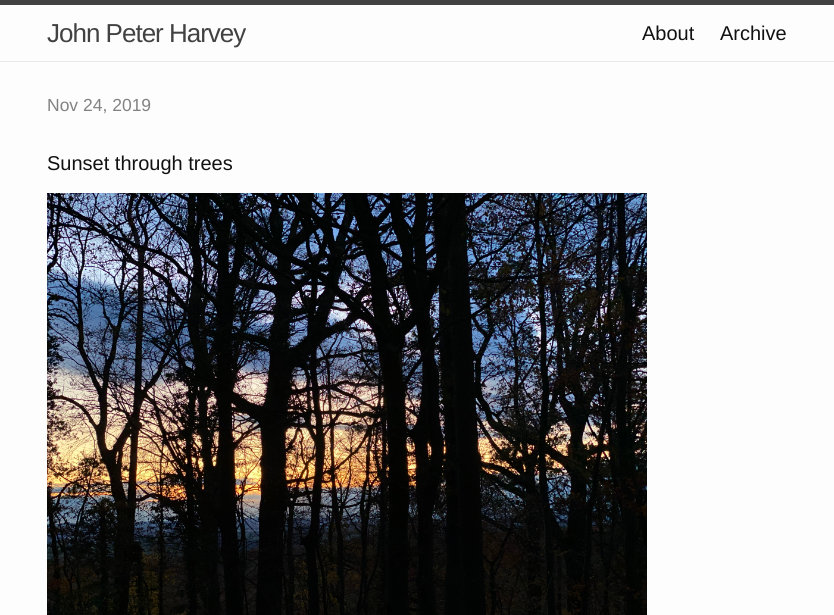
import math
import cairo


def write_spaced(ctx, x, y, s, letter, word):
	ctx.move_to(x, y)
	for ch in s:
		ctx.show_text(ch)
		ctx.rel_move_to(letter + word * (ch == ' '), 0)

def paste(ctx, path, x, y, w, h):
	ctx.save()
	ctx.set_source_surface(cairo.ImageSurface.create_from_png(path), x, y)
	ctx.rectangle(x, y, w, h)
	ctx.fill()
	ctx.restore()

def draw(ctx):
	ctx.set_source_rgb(0.992, 0.992, 0.992)
	ctx.paint()
	ctx.set_source_rgb(0.259, 0.259, 0.259)
	ctx.rectangle(0, 0, 834, 5)
	ctx.fill()
	ctx.set_source_rgb(0.91, 0.91, 0.91)
	ctx.rectangle(0, 61, 834, 1)
	ctx.fill()
	ctx.select_font_face('Liberation Sans')
	ctx.set_font_size(26)
	ctx.set_source_rgb(0.259, 0.259, 0.259)
	write_spaced(ctx, 47, 42, 'John Peter Harvey', -1, 0)
	ctx.set_font_size(20)
	ctx.set_source_rgb(0.067, 0.067, 0.067)
	ctx.move_to(642, 40)
	ctx.show_text('About')
	ctx.move_to(720, 40)
	ctx.show_text('Archive')
	ctx.set_font_size(17.5)
	ctx.set_source_rgb(0.51, 0.51, 0.51)
	ctx.move_to(47, 111)
	ctx.show_text('Nov 24, 2019')
	ctx.set_font_size(20)
	ctx.set_source_rgb(0.067, 0.067, 0.067)
	ctx.move_to(47, 170)
	ctx.show_text('Sunset through trees')
	paste(ctx, 'media/1.png', 47, 193, 600, 422)


surface = cairo.ImageSurface(cairo.FORMAT_RGB24, 834, 615)
ctx = cairo.Context(surface)
options = cairo.FontOptions()
options.set_hint_metrics(cairo.HINT_METRICS_OFF)
options.set_hint_style(cairo.HINT_STYLE_NONE)
ctx.set_font_options(options)
ctx.set_miter_limit(4)
draw(ctx)
surface.write_to_png('image.png')
